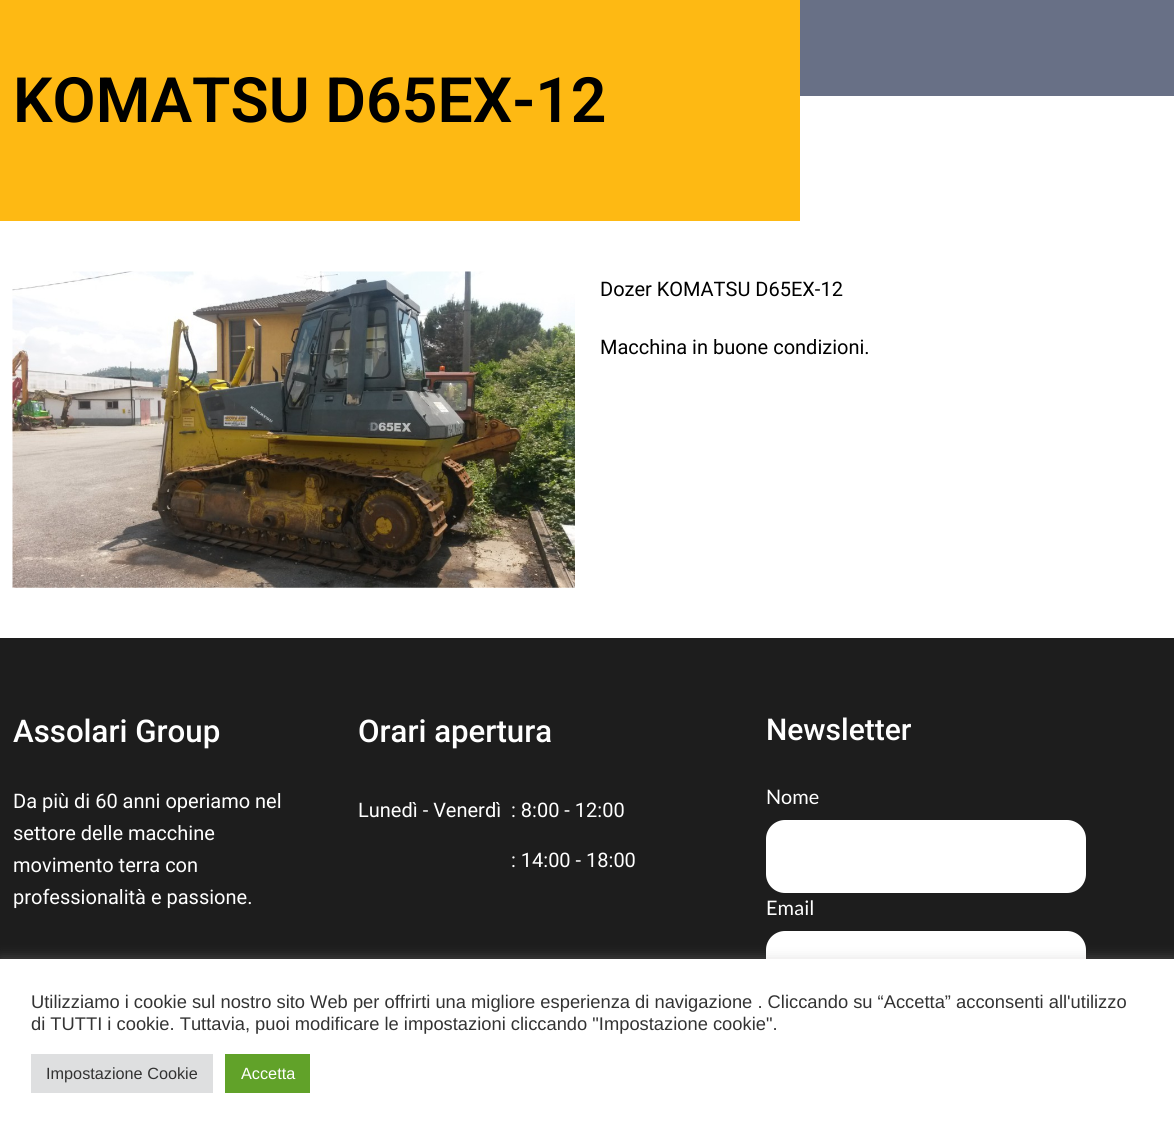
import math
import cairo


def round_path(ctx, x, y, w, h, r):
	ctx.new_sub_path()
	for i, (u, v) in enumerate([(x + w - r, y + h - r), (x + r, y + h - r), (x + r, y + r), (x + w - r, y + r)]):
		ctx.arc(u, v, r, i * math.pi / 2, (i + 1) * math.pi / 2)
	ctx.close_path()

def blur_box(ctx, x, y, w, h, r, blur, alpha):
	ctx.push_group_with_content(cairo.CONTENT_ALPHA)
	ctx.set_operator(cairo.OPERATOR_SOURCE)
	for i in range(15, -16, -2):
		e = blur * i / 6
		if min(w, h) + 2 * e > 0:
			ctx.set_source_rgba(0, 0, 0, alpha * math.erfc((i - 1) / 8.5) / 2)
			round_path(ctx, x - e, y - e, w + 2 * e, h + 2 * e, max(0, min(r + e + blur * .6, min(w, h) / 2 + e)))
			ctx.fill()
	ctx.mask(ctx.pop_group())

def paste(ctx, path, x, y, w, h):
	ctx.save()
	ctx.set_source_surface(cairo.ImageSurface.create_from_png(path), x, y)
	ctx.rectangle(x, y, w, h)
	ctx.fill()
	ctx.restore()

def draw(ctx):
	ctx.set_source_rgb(1, 1, 1)
	ctx.paint()
	ctx.set_source_rgb(0.996, 0.725, 0.075)
	ctx.rectangle(0, 0, 800, 221)
	ctx.fill()
	ctx.set_source_rgb(0.408, 0.439, 0.525)
	ctx.rectangle(800, 0, 374, 96)
	ctx.fill()
	ctx.select_font_face('Roboto SemiBold')
	ctx.set_font_size(62.5)
	ctx.set_source_rgb(0, 0, 0)
	ctx.move_to(13, 122)
	ctx.show_text('KOMATSU D65EX-12')
	paste(ctx, 'media/1.png', 12, 271, 563, 317)
	ctx.select_font_face('Roboto')
	ctx.set_font_size(20)
	ctx.move_to(600, 296)
	ctx.show_text('Dozer KOMATSU D65EX-12')
	ctx.move_to(600, 354)
	ctx.show_text('Macchina in buone condizioni.')
	ctx.set_source_rgb(0.114, 0.114, 0.114)
	ctx.rectangle(0, 638, 1174, 321)
	ctx.fill()
	ctx.select_font_face('Roboto Medium')
	ctx.set_font_size(31.25)
	ctx.set_source_rgb(1, 1, 1)
	ctx.move_to(13, 742)
	ctx.show_text('Assolari Group')
	ctx.select_font_face('Roboto')
	ctx.set_font_size(20)
	for x, y, s in [
		(13, 808, 'Da più di 60 anni operiamo nel'),
		(13, 840, 'settore delle macchine'),
		(13, 872, 'movimento terra con'),
		(13, 904, 'professionalità e passione.'),
	]:
		ctx.move_to(x, y)
		ctx.show_text(s)
	ctx.select_font_face('Roboto Medium')
	ctx.set_font_size(31.25)
	ctx.move_to(358, 742)
	ctx.show_text('Orari apertura')
	ctx.select_font_face('Roboto')
	ctx.set_font_size(20)
	for x, y, s in [
		(358, 817, 'Lunedì - Venerdì'),
		(511, 817, ': 8:00 - 12:00'),
		(511, 867, ': 14:00 - 18:00'),
	]:
		ctx.move_to(x, y)
		ctx.show_text(s)
	ctx.select_font_face('Roboto Medium')
	ctx.set_font_size(30)
	ctx.move_to(766, 740)
	ctx.show_text('Newsletter')
	ctx.select_font_face('Lato')
	ctx.set_font_size(20)
	ctx.move_to(766, 804)
	ctx.show_text('Nome')
	round_path(ctx, 766, 820, 320, 73, 19)
	ctx.fill()
	ctx.move_to(766, 915)
	ctx.show_text('Email')
	round_path(ctx, 766, 931, 320, 73, 19)
	ctx.fill()
	ctx.set_source_rgb(0.675, 0.671, 0.671)
	blur_box(ctx, 0, 958, 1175, 171, 0, 6, 0.3)
	ctx.set_source_rgb(1, 1, 1)
	ctx.rectangle(0, 959, 1174, 171)
	ctx.fill()
	ctx.select_font_face('Liberation Sans')
	ctx.set_font_size(18.33)
	ctx.set_source_rgb(0.2, 0.2, 0.2)
	ctx.move_to(31, 1008)
	ctx.show_text('Utilizziamo i cookie sul nostro sito Web per offrirti una migliore esperienza di navigazione . Cliccando su “Accetta” acconsenti all\'utilizzo')
	ctx.move_to(31, 1030)
	ctx.show_text('di TUTTI i cookie. Tuttavia, puoi modificare le impostazioni cliccando "Impostazione cookie".')
	ctx.set_source_rgb(0.871, 0.875, 0.878)
	ctx.rectangle(31, 1054, 182, 39)
	ctx.fill()
	ctx.set_font_size(16.25)
	ctx.set_source_rgb(0.2, 0.2, 0.2)
	ctx.move_to(46, 1079)
	ctx.show_text('Impostazione Cookie')
	ctx.set_source_rgb(0.38, 0.635, 0.161)
	ctx.rectangle(225, 1054, 85, 39)
	ctx.fill()
	ctx.set_source_rgb(1, 1, 1)
	ctx.move_to(241, 1079)
	ctx.show_text('Accetta')


surface = cairo.ImageSurface(cairo.FORMAT_RGB24, 1174, 1130)
ctx = cairo.Context(surface)
options = cairo.FontOptions()
options.set_hint_metrics(cairo.HINT_METRICS_OFF)
options.set_hint_style(cairo.HINT_STYLE_NONE)
ctx.set_font_options(options)
ctx.set_miter_limit(4)
draw(ctx)
surface.write_to_png('image.png')
